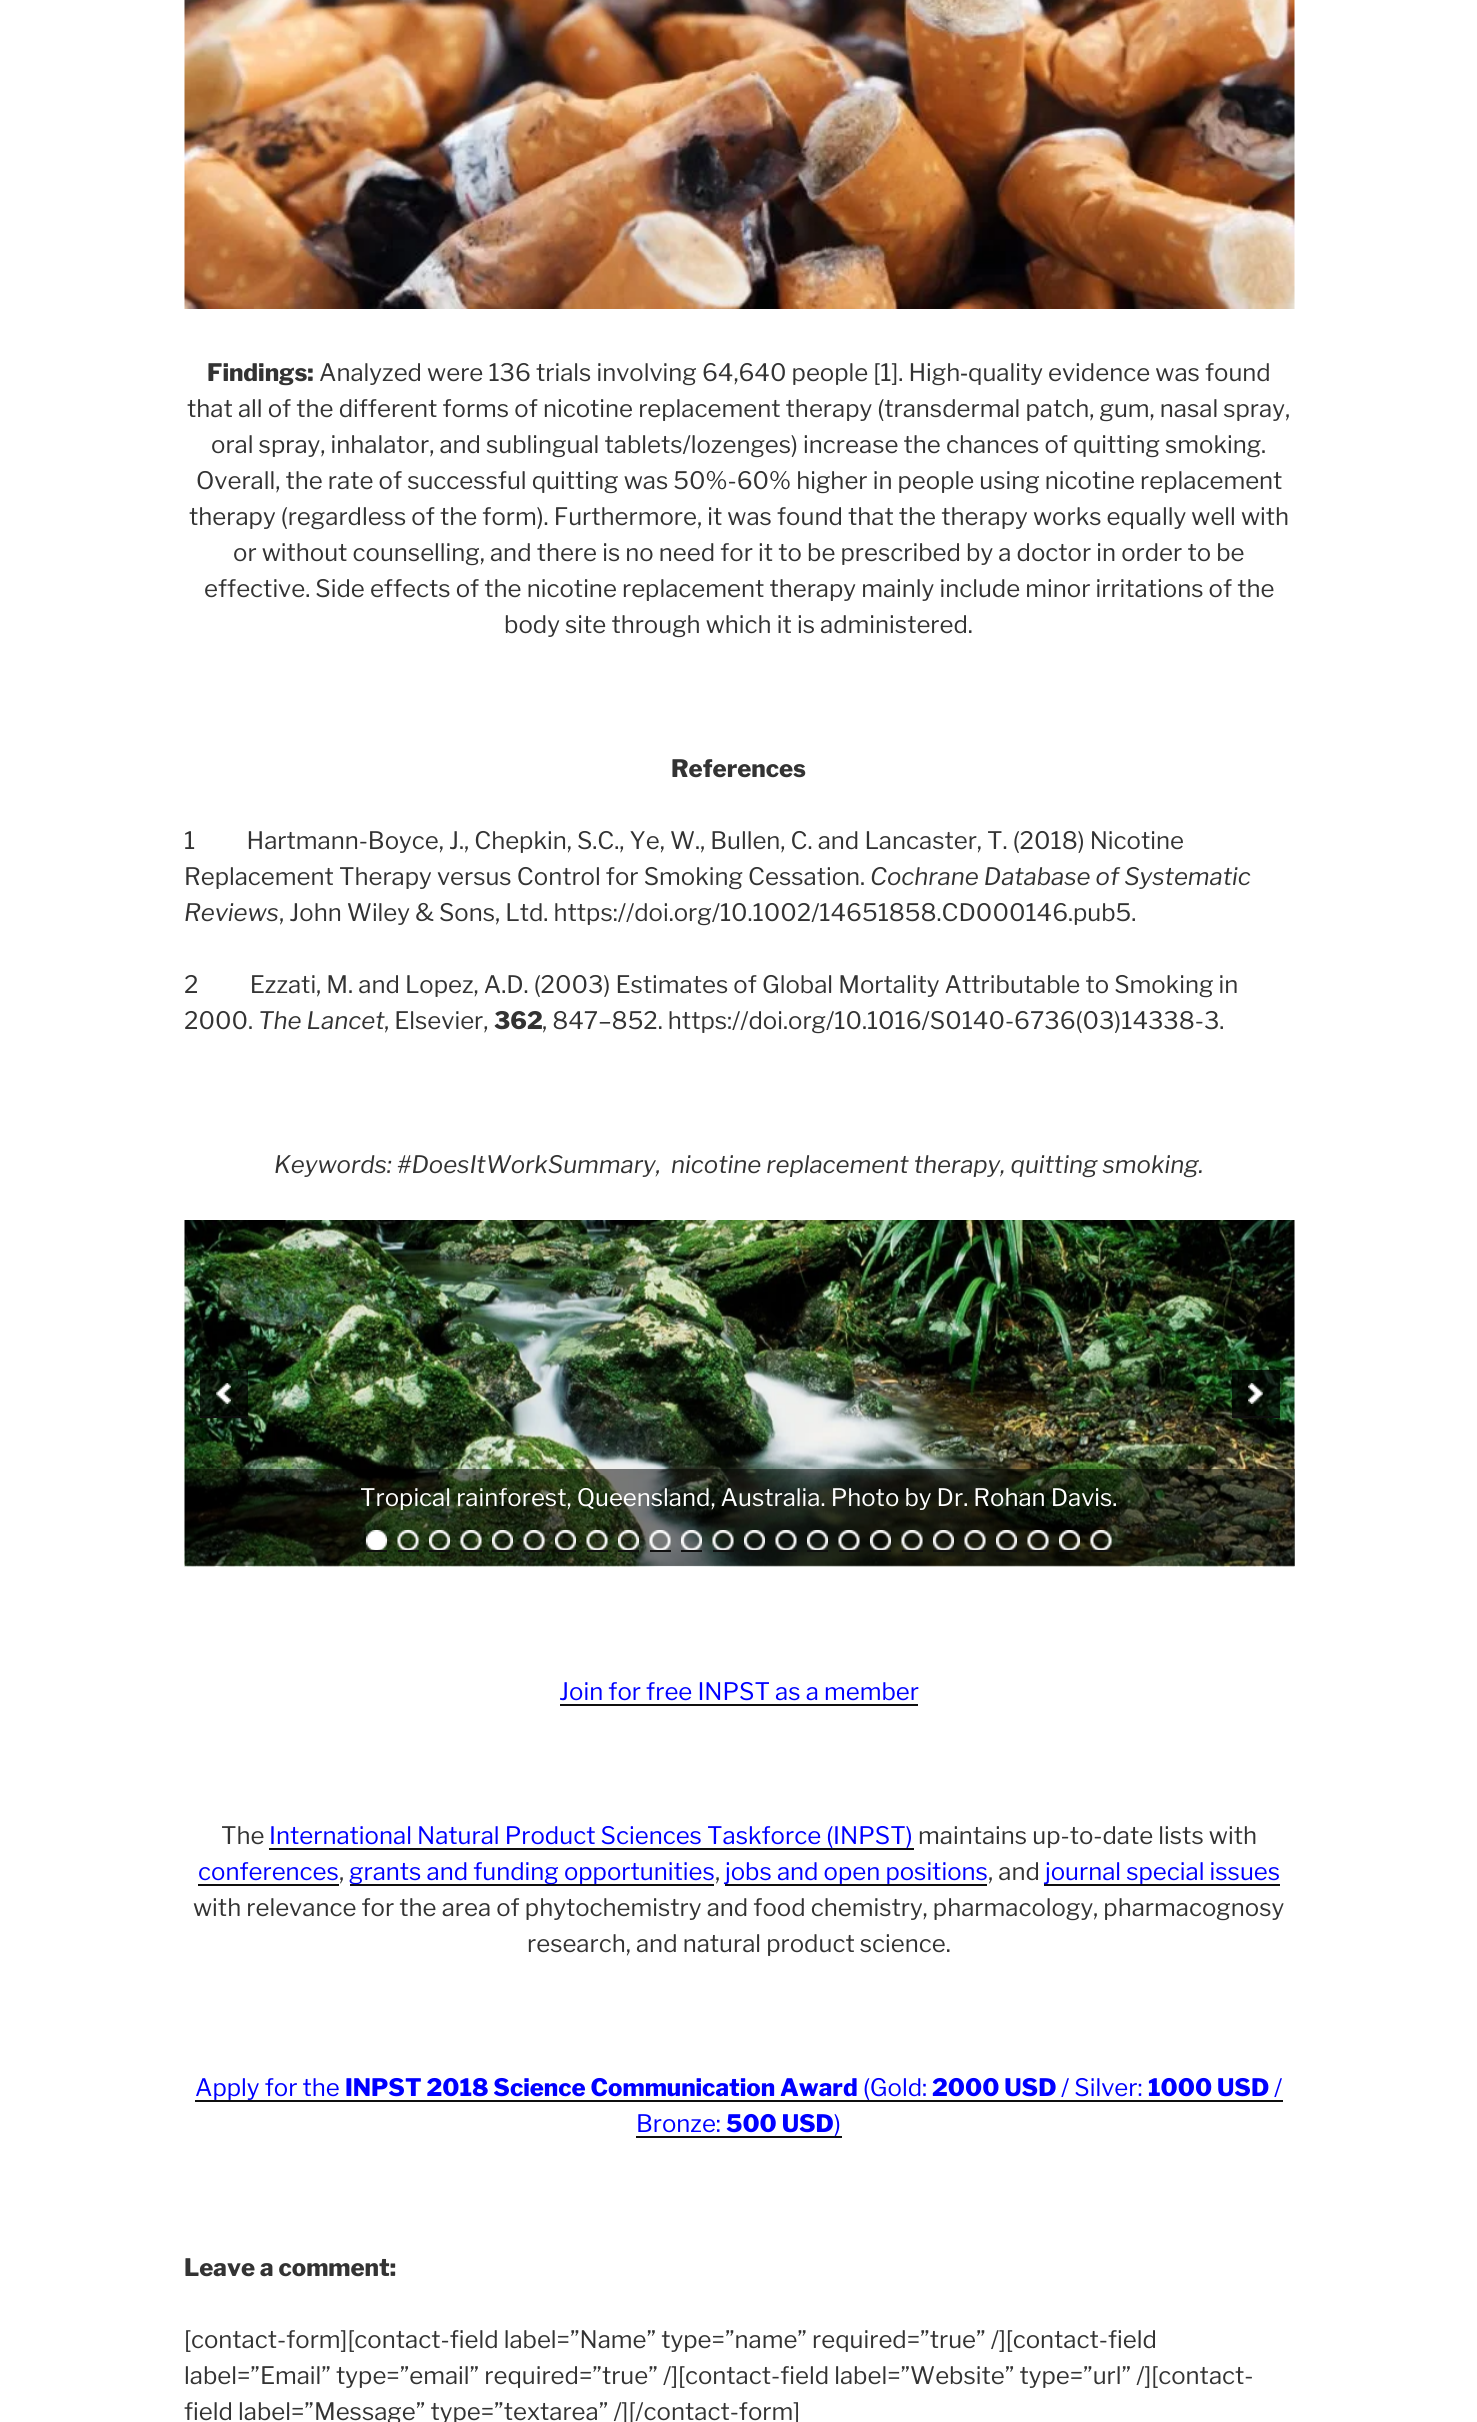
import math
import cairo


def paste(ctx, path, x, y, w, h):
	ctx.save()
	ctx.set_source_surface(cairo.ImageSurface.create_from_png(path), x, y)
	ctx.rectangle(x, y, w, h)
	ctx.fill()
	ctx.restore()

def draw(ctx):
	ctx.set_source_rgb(1, 1, 1)
	ctx.paint()
	paste(ctx, 'media/1.png', 184, 0, 1111, 309)
	ctx.select_font_face('Libre Franklin Thin')
	ctx.set_font_size(24)
	ctx.set_source_rgb(0.2, 0.2, 0.2)
	ctx.move_to(207, 381)
	ctx.show_text('Findings:')
	ctx.select_font_face('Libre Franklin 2 Thin')
	ctx.move_to(319, 381)
	ctx.show_text('Analyzed were 136 trials involving 64,640 people [1]. High')
	ctx.select_font_face('Liberation Sans')
	ctx.move_to(960, 381)
	ctx.show_text('‐')
	ctx.select_font_face('Libre Franklin 2 Thin')
	for x, y, s in [
		(968, 381, 'quality evidence was found'),
		(187, 417, 'that all of the different forms of nicotine replacement therapy (transdermal patch, gum, nasal spray,'),
		(211, 453, 'oral spray, inhalator, and sublingual tablets/lozenges) increase the chances of quitting smoking.'),
		(196, 489, 'Overall, the rate of successful quitting was 50%-60% higher in people using nicotine replacement'),
		(189, 525, 'therapy (regardless of the form). Furthermore, it was found that the therapy works equally well with'),
		(233, 561, 'or without counselling, and there is no need for it to be prescribed by a doctor in order to be'),
		(204, 597, 'effective. Side effects of the nicotine replacement therapy mainly include minor irritations of the'),
		(504, 633, 'body site through which it is administered.'),
	]:
		ctx.move_to(x, y)
		ctx.show_text(s)
	ctx.select_font_face('Libre Franklin Thin')
	ctx.move_to(671, 777)
	ctx.show_text('References')
	ctx.select_font_face('Libre Franklin 2 Thin')
	ctx.move_to(184, 849)
	ctx.show_text('1          Hartmann-Boyce, J., Chepkin, S.C., Ye, W., Bullen, C. and Lancaster, T. (2018) Nicotine')
	ctx.move_to(184, 885)
	ctx.show_text('Replacement Therapy versus Control for Smoking Cessation.')
	ctx.select_font_face('Libre Franklin Thin', cairo.FONT_SLANT_ITALIC)
	ctx.move_to(870, 885)
	ctx.show_text('Cochrane Database of Systematic')
	ctx.move_to(184, 921)
	ctx.show_text('Reviews')
	ctx.select_font_face('Libre Franklin 2 Thin')
	for x, y, s in [
		(279, 921, ', John Wiley & Sons, Ltd. https://doi.org/10.1002/14651858.CD000146.pub5.'),
		(184, 993, '2          Ezzati, M. and Lopez, A.D. (2003) Estimates of Global Mortality Attributable to Smoking in'),
		(184, 1029, '2000.'),
	]:
		ctx.move_to(x, y)
		ctx.show_text(s)
	ctx.select_font_face('Libre Franklin Thin', cairo.FONT_SLANT_ITALIC)
	ctx.move_to(258, 1029)
	ctx.show_text('The Lancet')
	ctx.select_font_face('Libre Franklin 2 Thin')
	ctx.move_to(384, 1029)
	ctx.show_text(', Elsevier,')
	ctx.select_font_face('Libre Franklin Thin')
	ctx.move_to(494, 1029)
	ctx.show_text('362')
	ctx.select_font_face('Libre Franklin 2 Thin')
	ctx.move_to(542, 1029)
	ctx.show_text(', 847–852. https://doi.org/10.1016/S0140-6736(03)14338-3.')
	ctx.select_font_face('Libre Franklin Thin', cairo.FONT_SLANT_ITALIC)
	ctx.move_to(274, 1173)
	ctx.show_text('Keywords: #DoesItWorkSummary,  nicotine replacement therapy, quitting smoking.')
	paste(ctx, 'media/28.png', 184, 1220, 1111, 347)
	ctx.set_source_rgba(0, 0, 0, 0.7)
	ctx.rectangle(200, 1370, 48, 46)
	ctx.fill()
	paste(ctx, 'media/2.png', 216, 1383, 15, 21)
	ctx.set_source_rgb(0.059, 0.059, 0.059)
	ctx.rectangle(200, 1416, 48, 2)
	ctx.fill()
	ctx.set_source_rgba(0, 0, 0, 0.7)
	ctx.rectangle(1232, 1370, 48, 46)
	ctx.fill()
	paste(ctx, 'media/3.png', 1248, 1383, 15, 21)
	ctx.set_source_rgb(0.059, 0.059, 0.059)
	ctx.rectangle(1232, 1416, 48, 2)
	ctx.fill()
	ctx.set_source_rgba(0, 0, 0, 0.5)
	ctx.rectangle(185, 1469, 1110, 97)
	ctx.fill()
	paste(ctx, 'media/4.png', 366, 1530, 21, 20)
	ctx.set_source_rgb(0.059, 0.059, 0.059)
	ctx.rectangle(366, 1550, 21, 2)
	ctx.fill()
	paste(ctx, 'media/5.png', 397, 1530, 22, 20)
	ctx.rectangle(398, 1550, 21, 2)
	ctx.fill()
	paste(ctx, 'media/6.png', 429, 1530, 21, 20)
	ctx.rectangle(429, 1550, 21, 2)
	ctx.fill()
	paste(ctx, 'media/7.png', 460, 1530, 22, 20)
	ctx.rectangle(461, 1550, 21, 2)
	ctx.fill()
	paste(ctx, 'media/8.png', 492, 1530, 21, 20)
	ctx.rectangle(492, 1550, 21, 2)
	ctx.fill()
	paste(ctx, 'media/9.png', 523, 1530, 22, 20)
	ctx.rectangle(524, 1550, 21, 2)
	ctx.fill()
	paste(ctx, 'media/10.png', 555, 1530, 21, 20)
	ctx.rectangle(555, 1550, 21, 2)
	ctx.fill()
	paste(ctx, 'media/11.png', 586, 1530, 22, 20)
	ctx.rectangle(587, 1550, 21, 2)
	ctx.fill()
	paste(ctx, 'media/12.png', 618, 1530, 21, 20)
	ctx.rectangle(618, 1550, 21, 2)
	ctx.fill()
	paste(ctx, 'media/13.png', 649, 1530, 22, 20)
	ctx.rectangle(650, 1550, 21, 2)
	ctx.fill()
	paste(ctx, 'media/14.png', 681, 1530, 21, 20)
	ctx.rectangle(681, 1550, 21, 2)
	ctx.fill()
	paste(ctx, 'media/15.png', 712, 1530, 22, 20)
	ctx.rectangle(713, 1550, 21, 2)
	ctx.fill()
	paste(ctx, 'media/16.png', 744, 1530, 21, 20)
	ctx.rectangle(744, 1550, 21, 2)
	ctx.fill()
	paste(ctx, 'media/17.png', 775, 1530, 22, 20)
	ctx.rectangle(776, 1550, 21, 2)
	ctx.fill()
	paste(ctx, 'media/18.png', 807, 1530, 21, 20)
	ctx.rectangle(807, 1550, 21, 2)
	ctx.fill()
	paste(ctx, 'media/19.png', 838, 1530, 22, 20)
	ctx.rectangle(839, 1550, 21, 2)
	ctx.fill()
	paste(ctx, 'media/20.png', 870, 1530, 21, 20)
	ctx.rectangle(870, 1550, 21, 2)
	ctx.fill()
	paste(ctx, 'media/21.png', 901, 1530, 22, 20)
	ctx.rectangle(902, 1550, 21, 2)
	ctx.fill()
	paste(ctx, 'media/22.png', 933, 1530, 21, 20)
	ctx.rectangle(933, 1550, 21, 2)
	ctx.fill()
	paste(ctx, 'media/23.png', 964, 1530, 22, 20)
	ctx.rectangle(965, 1550, 21, 2)
	ctx.fill()
	paste(ctx, 'media/24.png', 996, 1530, 21, 20)
	ctx.rectangle(996, 1550, 21, 2)
	ctx.fill()
	paste(ctx, 'media/25.png', 1027, 1530, 22, 20)
	ctx.rectangle(1028, 1550, 21, 2)
	ctx.fill()
	paste(ctx, 'media/26.png', 1059, 1530, 21, 20)
	ctx.rectangle(1059, 1550, 21, 2)
	ctx.fill()
	paste(ctx, 'media/27.png', 1090, 1530, 22, 20)
	ctx.rectangle(1091, 1550, 21, 2)
	ctx.fill()
	ctx.select_font_face('Libre Franklin 2 Thin')
	ctx.set_source_rgb(1, 1, 1)
	ctx.move_to(360, 1506)
	ctx.show_text('Tropical rainforest, Queensland, Australia. Photo by Dr. Rohan Davis.')
	ctx.set_source_rgb(0, 0, 1)
	ctx.move_to(559, 1700)
	ctx.show_text('Join for free INPST as a member')
	ctx.set_source_rgb(0.059, 0.059, 0.059)
	ctx.rectangle(560, 1704, 358, 2)
	ctx.fill()
	ctx.set_source_rgb(0.2, 0.2, 0.2)
	ctx.move_to(221, 1844)
	ctx.show_text('The')
	ctx.set_source_rgb(0, 0, 1)
	ctx.move_to(269, 1844)
	ctx.show_text('International Natural Product Sciences Taskforce (INPST)')
	ctx.set_source_rgb(0.059, 0.059, 0.059)
	ctx.rectangle(269, 1848, 645, 2)
	ctx.fill()
	ctx.set_source_rgb(0.2, 0.2, 0.2)
	ctx.move_to(918, 1844)
	ctx.show_text('maintains up-to-date lists with')
	ctx.set_source_rgb(0, 0, 1)
	ctx.move_to(198, 1880)
	ctx.show_text('conferences')
	ctx.set_source_rgb(0.059, 0.059, 0.059)
	ctx.rectangle(198, 1884, 141, 2)
	ctx.fill()
	ctx.set_source_rgb(0.2, 0.2, 0.2)
	ctx.move_to(339, 1880)
	ctx.show_text(',')
	ctx.set_source_rgb(0.059, 0.059, 0.059)
	ctx.rectangle(350, 1884, 364, 2)
	ctx.fill()
	ctx.set_source_rgb(0, 0, 1)
	ctx.move_to(349, 1880)
	ctx.show_text('grants and funding opportunities')
	ctx.set_source_rgb(0.2, 0.2, 0.2)
	ctx.move_to(715, 1880)
	ctx.show_text(',')
	ctx.set_source_rgb(0.059, 0.059, 0.059)
	ctx.rectangle(725, 1884, 262, 2)
	ctx.fill()
	ctx.set_source_rgb(0, 0, 1)
	ctx.move_to(725, 1880)
	ctx.show_text('jobs and open positions')
	ctx.set_source_rgb(0.2, 0.2, 0.2)
	ctx.move_to(988, 1880)
	ctx.show_text(', and')
	ctx.set_source_rgb(0.059, 0.059, 0.059)
	ctx.rectangle(1044, 1884, 236, 2)
	ctx.fill()
	ctx.set_source_rgb(0, 0, 1)
	ctx.move_to(1045, 1880)
	ctx.show_text('journal special issues')
	ctx.set_source_rgb(0.2, 0.2, 0.2)
	ctx.move_to(193, 1916)
	ctx.show_text('with relevance for the area of phytochemistry and food chemistry, pharmacology, pharmacognosy')
	ctx.move_to(527, 1952)
	ctx.show_text('research, and natural product science.')
	ctx.set_source_rgb(0, 0, 1)
	ctx.move_to(195, 2096)
	ctx.show_text('Apply for the')
	ctx.set_source_rgb(0.059, 0.059, 0.059)
	ctx.rectangle(195, 2100, 1088, 2)
	ctx.fill()
	ctx.select_font_face('Libre Franklin Thin')
	ctx.set_source_rgb(0, 0, 1)
	ctx.move_to(345, 2096)
	ctx.show_text('INPST 2018 Science Communication Award')
	ctx.select_font_face('Libre Franklin 2 Thin')
	ctx.move_to(863, 2096)
	ctx.show_text('(Gold:')
	ctx.select_font_face('Libre Franklin Thin')
	ctx.move_to(932, 2096)
	ctx.show_text('2000 USD')
	ctx.select_font_face('Libre Franklin 2 Thin')
	ctx.move_to(1061, 2096)
	ctx.show_text('/ Silver:')
	ctx.select_font_face('Libre Franklin Thin')
	ctx.move_to(1148, 2096)
	ctx.show_text('1000 USD')
	ctx.select_font_face('Libre Franklin 2 Thin')
	ctx.move_to(1274, 2096)
	ctx.show_text('/')
	ctx.move_to(636, 2132)
	ctx.show_text('Bronze:')
	ctx.select_font_face('Libre Franklin Thin')
	ctx.move_to(726, 2132)
	ctx.show_text('500 USD')
	ctx.select_font_face('Libre Franklin 2 Thin')
	ctx.move_to(834, 2132)
	ctx.show_text(')')
	ctx.set_source_rgb(0.059, 0.059, 0.059)
	ctx.rectangle(636, 2136, 206, 2)
	ctx.fill()
	ctx.select_font_face('Libre Franklin Thin')
	ctx.set_source_rgb(0.2, 0.2, 0.2)
	ctx.move_to(184, 2276)
	ctx.show_text('Leave a comment:')
	ctx.select_font_face('Libre Franklin 2 Thin')
	for x, y, s in [
		(184, 2348, '[contact-form][contact-field label=”Name” type=”name” required=”true” /][contact-field'),
		(184, 2384, 'label=”Email” type=”email” required=”true” /][contact-field label=”Website” type=”url” /][contact-'),
		(184, 2420, 'field label=”Message” type=”textarea” /][/contact-form]'),
	]:
		ctx.move_to(x, y)
		ctx.show_text(s)


surface = cairo.ImageSurface(cairo.FORMAT_RGB24, 1477, 2422)
ctx = cairo.Context(surface)
options = cairo.FontOptions()
options.set_hint_metrics(cairo.HINT_METRICS_OFF)
options.set_hint_style(cairo.HINT_STYLE_NONE)
ctx.set_font_options(options)
ctx.set_miter_limit(4)
draw(ctx)
surface.write_to_png('image.png')
